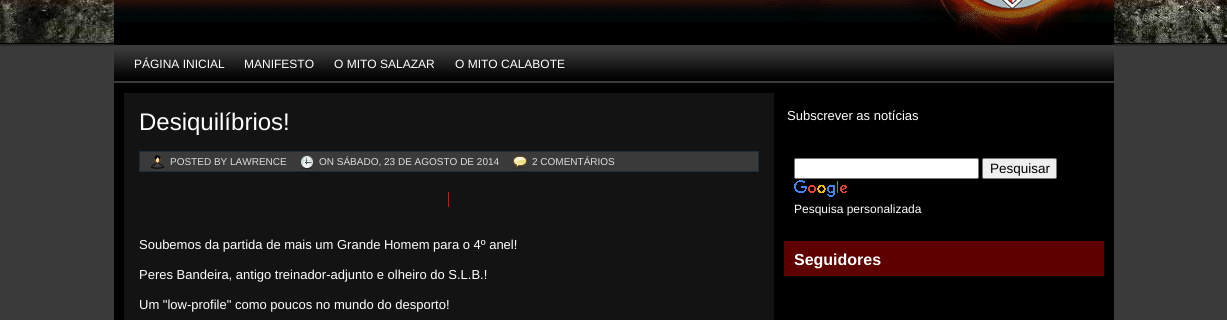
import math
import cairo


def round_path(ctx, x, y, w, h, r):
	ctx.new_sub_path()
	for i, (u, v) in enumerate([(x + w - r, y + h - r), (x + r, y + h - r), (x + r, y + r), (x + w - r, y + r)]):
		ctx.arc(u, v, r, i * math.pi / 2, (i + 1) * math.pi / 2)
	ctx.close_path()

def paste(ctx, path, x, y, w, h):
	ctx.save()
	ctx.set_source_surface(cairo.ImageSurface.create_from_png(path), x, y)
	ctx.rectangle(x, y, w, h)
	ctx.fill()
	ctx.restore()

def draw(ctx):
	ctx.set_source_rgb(0.227, 0.227, 0.227)
	ctx.paint()
	paste(ctx, 'media/1.png', 0, 0, 1227, 46)
	paste(ctx, 'media/2.png', 114, 0, 1000, 45)
	paste(ctx, 'media/3.png', 114, 45, 1000, 36)
	ctx.select_font_face('Liberation Sans')
	ctx.set_font_size(12)
	ctx.set_source_rgb(1, 1, 1)
	for x, y, s in [
		(134, 68, 'PÁGINA INICIAL'),
		(244, 68, 'MANIFESTO'),
		(334, 68, 'O MITO SALAZAR'),
		(455, 68, 'O MITO CALABOTE'),
	]:
		ctx.move_to(x, y)
		ctx.show_text(s)
	ctx.set_source_rgb(0, 0, 0)
	ctx.rectangle(114, 83, 1000, 237)
	ctx.fill()
	ctx.set_source_rgb(0.078, 0.078, 0.078)
	ctx.rectangle(124, 93, 650, 227)
	ctx.fill()
	ctx.set_font_size(24)
	ctx.set_source_rgb(1, 1, 1)
	ctx.move_to(139, 130)
	ctx.show_text('Desiquilíbrios!')
	ctx.set_source_rgb(0.227, 0.227, 0.227)
	ctx.rectangle(139.5, 151.5, 619, 20)
	ctx.fill_preserve()
	ctx.set_source_rgb(0.106, 0.18, 0.247)
	ctx.set_line_width(1)
	ctx.stroke()
	paste(ctx, 'media/4.png', 151, 155, 13, 14)
	ctx.set_font_size(10)
	ctx.set_source_rgb(0.867, 0.867, 0.867)
	ctx.move_to(170, 165)
	ctx.show_text('POSTED BY LAWRENCE')
	paste(ctx, 'media/5.png', 300, 155, 14, 14)
	ctx.move_to(319, 165)
	ctx.show_text('ON SÁBADO, 23 DE AGOSTO DE 2014')
	paste(ctx, 'media/6.png', 513, 156, 14, 13)
	ctx.move_to(532, 165)
	ctx.show_text('2 COMENTÁRIOS')
	ctx.set_source_rgb(1, 0, 0)
	ctx.rectangle(448, 192, 1, 15)
	ctx.fill()
	ctx.set_font_size(13)
	ctx.set_source_rgb(1, 1, 1)
	for x, y, s in [
		(139, 249, 'Soubemos da partida de mais um Grande Homem para o 4º anel!'),
		(139, 279, 'Peres Bandeira, antigo treinador-adjunto e olheiro do S.L.B.!'),
		(139, 309, 'Um "low-profile" como poucos no mundo do desporto!'),
		(787, 120, 'Subscrever as notícias'),
	]:
		ctx.move_to(x, y)
		ctx.show_text(s)
	round_path(ctx, 794.5, 158.5, 184, 20, 1.5)
	ctx.fill_preserve()
	ctx.set_source_rgb(0.463, 0.463, 0.463)
	ctx.stroke()
	ctx.set_source_rgb(0.937, 0.937, 0.937)
	round_path(ctx, 982.5, 158.5, 74, 20, 1.5)
	ctx.fill_preserve()
	ctx.set_source_rgb(0.463, 0.463, 0.463)
	ctx.stroke()
	ctx.set_font_size(13.5)
	ctx.set_source_rgb(0, 0, 0)
	ctx.move_to(990, 173)
	ctx.show_text('Pesquisar')
	paste(ctx, 'media/7.png', 794, 180, 53, 17)
	ctx.set_font_size(12)
	ctx.set_source_rgb(1, 1, 1)
	ctx.move_to(794, 213)
	ctx.show_text('Pesquisa personalizada')
	ctx.set_source_rgb(0.369, 0, 0)
	ctx.rectangle(784, 241, 320, 35)
	ctx.fill()
	ctx.select_font_face('Liberation Sans', cairo.FONT_SLANT_NORMAL, cairo.FONT_WEIGHT_BOLD)
	ctx.set_font_size(16)
	ctx.set_source_rgb(1, 1, 1)
	ctx.move_to(794, 265)
	ctx.show_text('Seguidores')


surface = cairo.ImageSurface(cairo.FORMAT_RGB24, 1227, 320)
ctx = cairo.Context(surface)
options = cairo.FontOptions()
options.set_hint_metrics(cairo.HINT_METRICS_OFF)
options.set_hint_style(cairo.HINT_STYLE_NONE)
ctx.set_font_options(options)
ctx.set_miter_limit(4)
draw(ctx)
surface.write_to_png('image.png')
